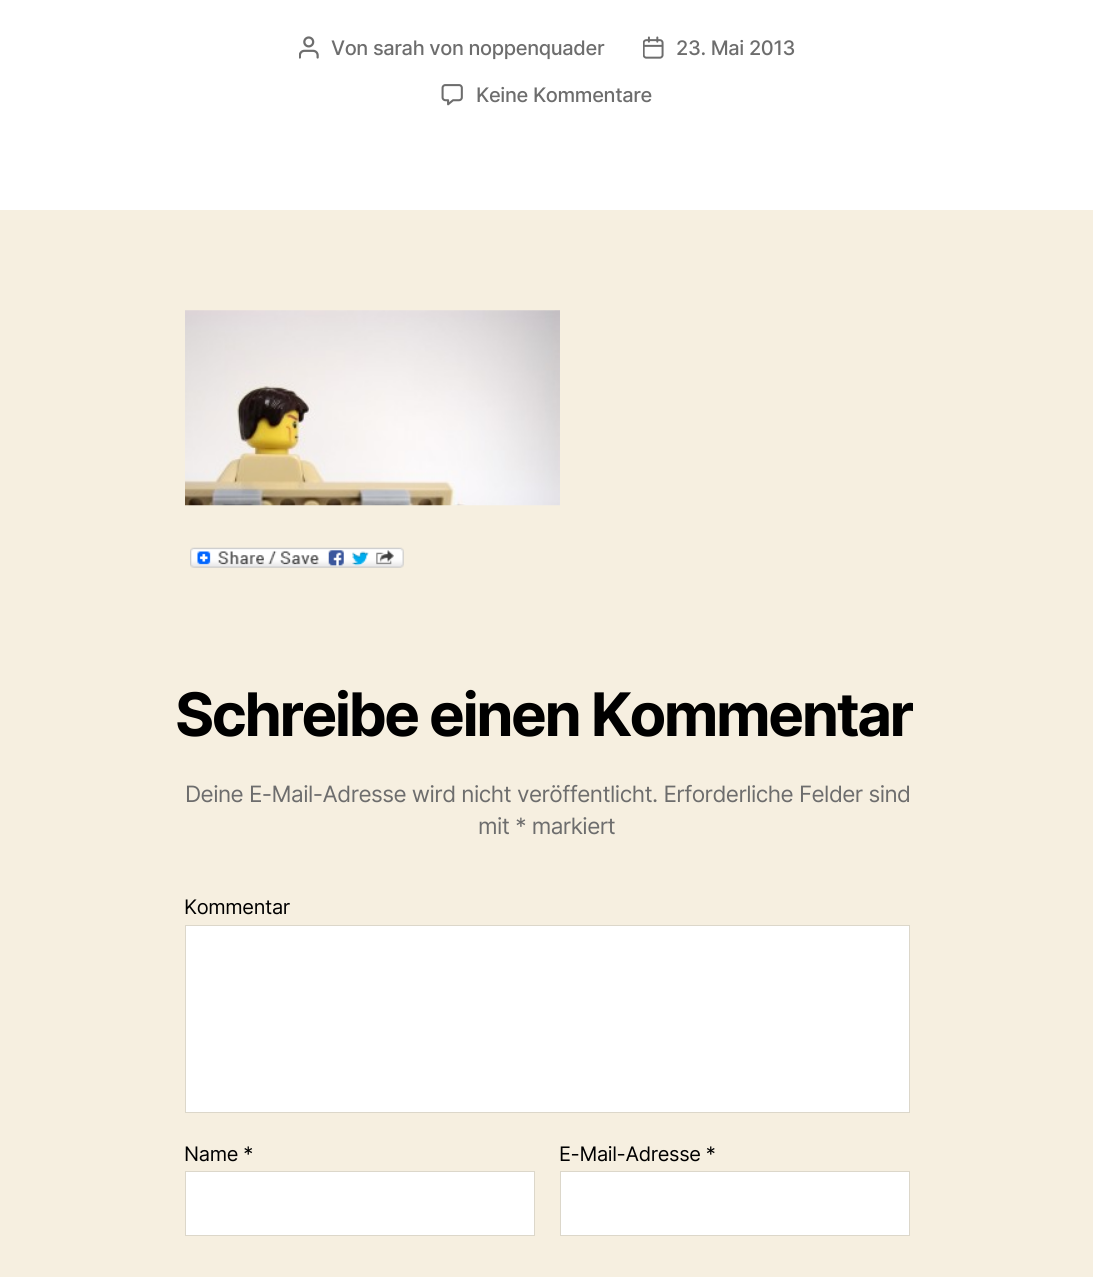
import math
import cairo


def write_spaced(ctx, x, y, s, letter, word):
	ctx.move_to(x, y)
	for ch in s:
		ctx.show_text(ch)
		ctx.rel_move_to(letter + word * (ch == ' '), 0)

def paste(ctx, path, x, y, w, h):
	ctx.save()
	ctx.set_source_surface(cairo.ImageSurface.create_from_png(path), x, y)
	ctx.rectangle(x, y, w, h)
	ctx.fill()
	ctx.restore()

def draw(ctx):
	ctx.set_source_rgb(0.961, 0.937, 0.878)
	ctx.paint()
	ctx.set_source_rgb(1, 1, 1)
	ctx.rectangle(0, 0, 1093, 210)
	ctx.fill()
	paste(ctx, 'media/1.png', 299, 36, 20, 23)
	ctx.select_font_face('Inter Medium')
	ctx.set_font_size(20)
	ctx.set_source_rgb(0.427, 0.427, 0.427)
	write_spaced(ctx, 331, 55, 'Von sarah von noppenquader', -0.35, 0)
	paste(ctx, 'media/2.png', 643, 36, 21, 23)
	write_spaced(ctx, 676, 55, '23. Mai 2013', -0.35, 0)
	paste(ctx, 'media/3.png', 441, 84, 22, 22)
	write_spaced(ctx, 476, 102, 'Keine Kommentare', -0.35, 0)
	paste(ctx, 'media/4.png', 185, 310, 375, 196)
	paste(ctx, 'media/5.png', 190, 547, 214, 21)
	ctx.select_font_face('Inter', cairo.FONT_SLANT_NORMAL, cairo.FONT_WEIGHT_BOLD)
	ctx.set_font_size(60)
	ctx.set_source_rgb(0, 0, 0)
	write_spaced(ctx, 175, 736, 'Schreibe einen Kommentar', -2.5, 0)
	ctx.select_font_face('Inter')
	ctx.set_font_size(22.5)
	ctx.set_source_rgb(0.427, 0.427, 0.427)
	write_spaced(ctx, 185, 802, 'Deine E-Mail-Adresse wird nicht veröffentlicht. Erforderliche Felder sind', -0.55, 0)
	write_spaced(ctx, 478, 834, 'mit * markiert', -0.55, 0)
	ctx.set_font_size(20)
	ctx.set_source_rgb(0, 0, 0)
	write_spaced(ctx, 184, 914, 'Kommentar', -0.35, 0)
	ctx.set_source_rgb(1, 1, 1)
	ctx.rectangle(185.5, 925.5, 724, 187)
	ctx.fill_preserve()
	ctx.set_source_rgb(0.863, 0.843, 0.792)
	ctx.set_line_width(1)
	ctx.stroke()
	ctx.set_source_rgb(0, 0, 0)
	write_spaced(ctx, 184, 1161, 'Name *', -0.35, 0)
	ctx.set_source_rgb(1, 1, 1)
	ctx.rectangle(185.5, 1171.5, 349, 64)
	ctx.fill_preserve()
	ctx.set_source_rgb(0.863, 0.843, 0.792)
	ctx.stroke()
	ctx.set_source_rgb(0, 0, 0)
	write_spaced(ctx, 559, 1161, 'E-Mail-Adresse *', -0.35, 0)
	ctx.set_source_rgb(1, 1, 1)
	ctx.rectangle(560.5, 1171.5, 349, 64)
	ctx.fill_preserve()
	ctx.set_source_rgb(0.863, 0.843, 0.792)
	ctx.stroke()


surface = cairo.ImageSurface(cairo.FORMAT_RGB24, 1093, 1277)
ctx = cairo.Context(surface)
options = cairo.FontOptions()
options.set_hint_metrics(cairo.HINT_METRICS_OFF)
options.set_hint_style(cairo.HINT_STYLE_NONE)
ctx.set_font_options(options)
ctx.set_miter_limit(4)
draw(ctx)
surface.write_to_png('image.png')
